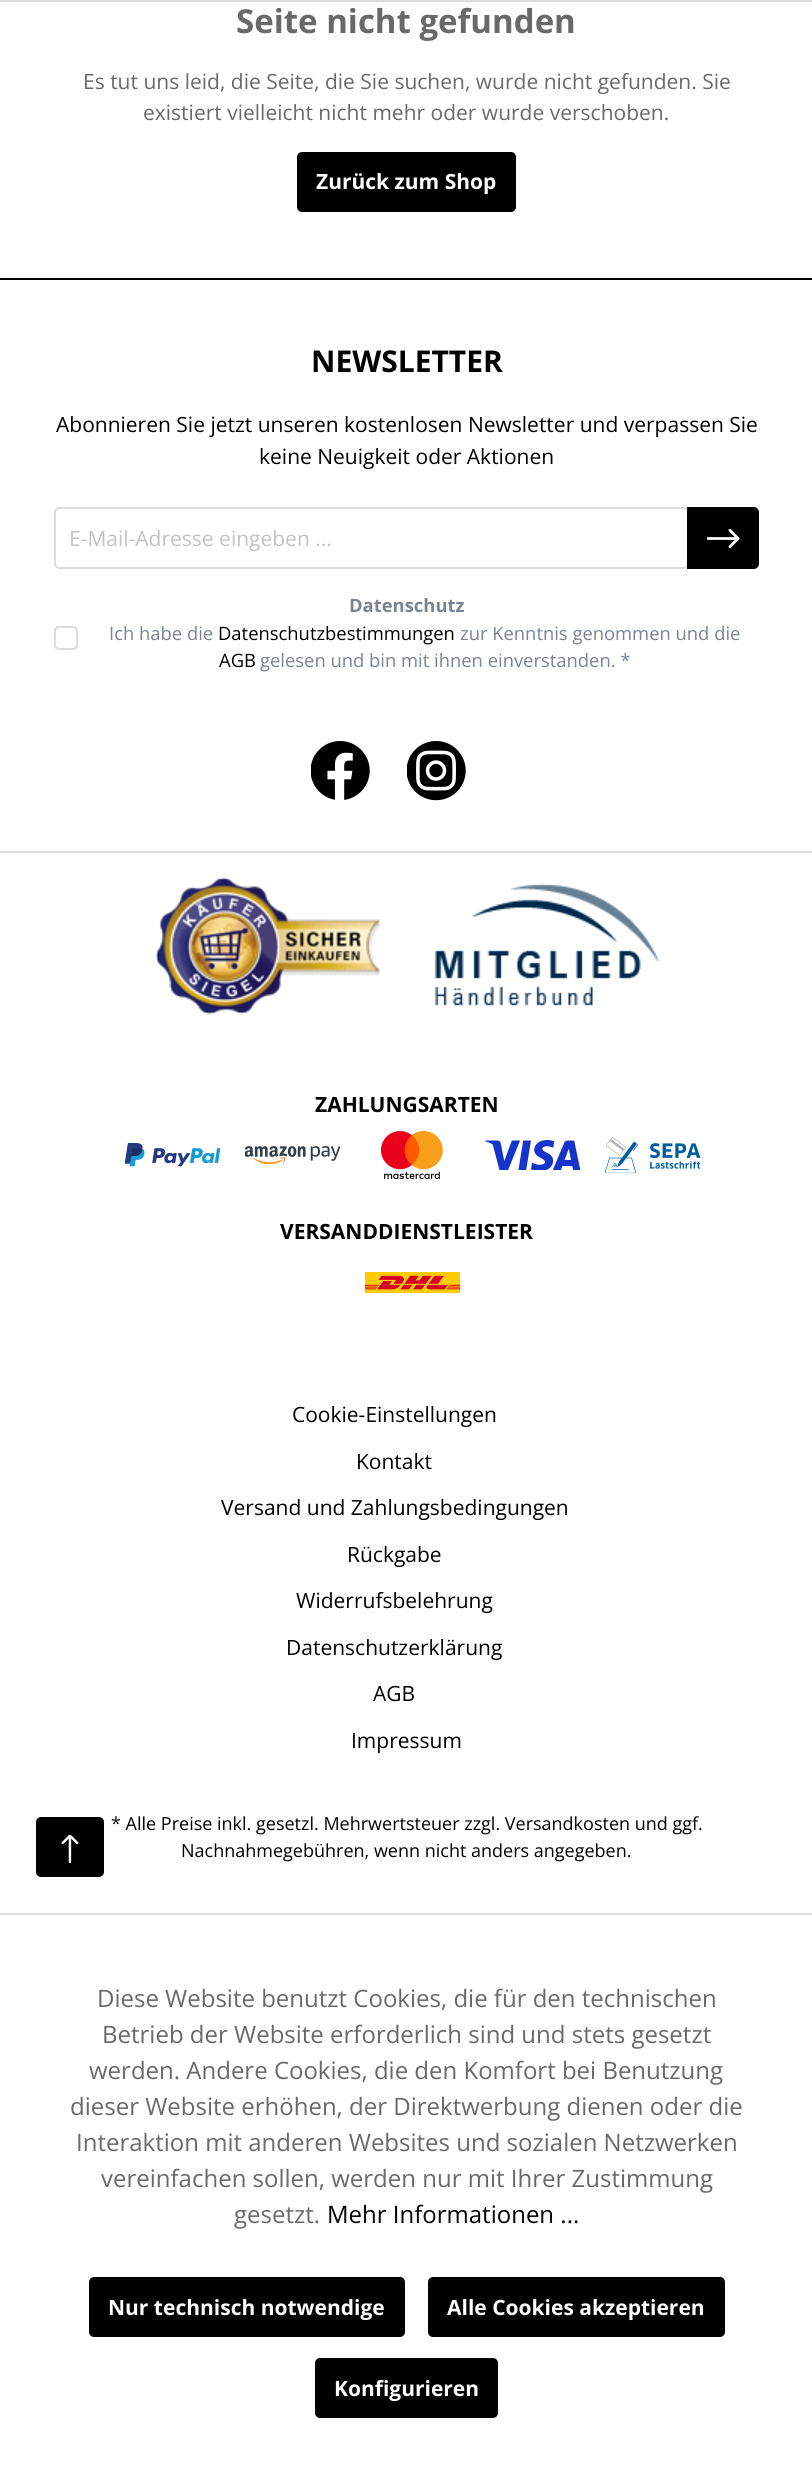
import math
import cairo


def round_path(ctx, x, y, w, h, r):
	ctx.new_sub_path()
	for i, (u, v) in enumerate([(x + w - r, y + h - r), (x + r, y + h - r), (x + r, y + r), (x + w - r, y + r)]):
		ctx.arc(u, v, r, i * math.pi / 2, (i + 1) * math.pi / 2)
	ctx.close_path()

def paste(ctx, path, x, y, w, h):
	ctx.save()
	ctx.set_source_surface(cairo.ImageSurface.create_from_png(path), x, y)
	ctx.rectangle(x, y, w, h)
	ctx.fill()
	ctx.restore()

def draw(ctx):
	ctx.set_source_rgb(1, 1, 1)
	ctx.paint()
	ctx.set_source_rgb(0.863, 0.863, 0.863)
	ctx.rectangle(0, 0, 812, 2)
	ctx.fill()
	ctx.select_font_face('Open Sans', cairo.FONT_SLANT_NORMAL, cairo.FONT_WEIGHT_BOLD)
	ctx.set_font_size(33)
	ctx.set_source_rgb(0.412, 0.412, 0.412)
	ctx.move_to(236, 33)
	ctx.show_text('Seite nicht gefunden')
	ctx.select_font_face('Open Sans')
	ctx.set_font_size(21)
	ctx.move_to(83, 89)
	ctx.show_text('Es tut uns leid, die Seite, die Sie suchen, wurde nicht gefunden. Sie')
	ctx.move_to(143, 120)
	ctx.show_text('existiert vielleicht nicht mehr oder wurde verschoben.')
	ctx.set_source_rgb(0, 0, 0)
	round_path(ctx, 298, 153, 217, 58, 4)
	ctx.fill_preserve()
	ctx.stroke()
	ctx.select_font_face('Open Sans', cairo.FONT_SLANT_NORMAL, cairo.FONT_WEIGHT_BOLD)
	ctx.set_source_rgb(1, 1, 1)
	ctx.move_to(316, 189)
	ctx.show_text('Zurück zum Shop')
	ctx.set_source_rgb(0, 0, 0)
	ctx.rectangle(0, 278, 812, 2)
	ctx.fill()
	ctx.set_font_size(30)
	ctx.move_to(311, 372)
	ctx.show_text('NEWSLETTER')
	ctx.select_font_face('Open Sans')
	ctx.set_font_size(21)
	ctx.move_to(56, 432)
	ctx.show_text('Abonnieren Sie jetzt unseren kostenlosen Newsletter und verpassen Sie')
	ctx.move_to(259, 464)
	ctx.show_text('keine Neuigkeit oder Aktionen')
	round_path(ctx, 55, 508, 633, 60, 4)
	ctx.set_source_rgb(0.863, 0.863, 0.863)
	ctx.stroke()
	ctx.set_source_rgb(0.765, 0.765, 0.765)
	ctx.move_to(69, 546)
	ctx.show_text('E-Mail-Adresse eingeben ...')
	ctx.set_source_rgb(0, 0, 0)
	ctx.new_path()
	ctx.move_to(688, 508)
	ctx.line_to(754, 508)
	ctx.curve_to(756, 508, 758, 510, 758, 512)
	ctx.line_to(758, 564)
	ctx.curve_to(758, 566, 756, 568, 754, 568)
	ctx.line_to(688, 568)
	ctx.close_path()
	ctx.fill_preserve()
	ctx.stroke()
	paste(ctx, 'media/1.png', 707, 528, 33, 21)
	ctx.select_font_face('Open Sans', cairo.FONT_SLANT_NORMAL, cairo.FONT_WEIGHT_BOLD)
	ctx.set_font_size(18.4)
	ctx.set_source_rgb(0.475, 0.518, 0.565)
	ctx.move_to(349, 612)
	ctx.show_text('Datenschutz')
	round_path(ctx, 55, 627, 22, 22, 4)
	ctx.set_source_rgb(0.863, 0.863, 0.863)
	ctx.stroke()
	ctx.select_font_face('Open Sans')
	ctx.set_source_rgb(0.475, 0.518, 0.565)
	ctx.move_to(109, 640)
	ctx.show_text('Ich habe die')
	ctx.set_source_rgb(0, 0, 0)
	ctx.move_to(218, 640)
	ctx.show_text('Datenschutzbestimmungen')
	ctx.set_source_rgb(0.475, 0.518, 0.565)
	ctx.move_to(460, 640)
	ctx.show_text('zur Kenntnis genommen und die')
	ctx.set_source_rgb(0, 0, 0)
	ctx.move_to(219, 667)
	ctx.show_text('AGB')
	ctx.set_source_rgb(0.475, 0.518, 0.565)
	ctx.move_to(260, 667)
	ctx.show_text('gelesen und bin mit ihnen einverstanden. *')
	ctx.set_source_rgb(0.863, 0.863, 0.863)
	ctx.rectangle(0, 851, 812, 2)
	ctx.fill()
	paste(ctx, 'media/2.png', 311, 741, 59, 59)
	paste(ctx, 'media/3.png', 407, 741, 59, 60)
	paste(ctx, 'media/4.png', 155, 877, 225, 138)
	paste(ctx, 'media/5.png', 434, 883, 225, 123)
	ctx.select_font_face('Open Sans', cairo.FONT_SLANT_NORMAL, cairo.FONT_WEIGHT_BOLD)
	ctx.set_font_size(21)
	ctx.set_source_rgb(0, 0, 0)
	ctx.move_to(315, 1112)
	ctx.show_text('ZAHLUNGSARTEN')
	paste(ctx, 'media/6.png', 125, 1143, 96, 24)
	paste(ctx, 'media/7.png', 245, 1146, 95, 18)
	paste(ctx, 'media/8.png', 381, 1131, 62, 48)
	paste(ctx, 'media/9.png', 485, 1140, 96, 30)
	paste(ctx, 'media/10.png', 605, 1137, 96, 36)
	ctx.move_to(280, 1239)
	ctx.show_text('VERSANDDIENSTLEISTER')
	paste(ctx, 'media/11.png', 365, 1272, 96, 21)
	ctx.select_font_face('Open Sans')
	for x, y, s in [
		(292, 1422, 'Cookie-Einstellungen'),
		(356, 1469, 'Kontakt'),
		(221, 1515, 'Versand und Zahlungsbedingungen'),
		(347, 1562, 'Rückgabe'),
		(296, 1608, 'Widerrufsbelehrung'),
		(286, 1655, 'Datenschutzerklärung'),
		(373, 1701, 'AGB'),
		(351, 1748, 'Impressum'),
	]:
		ctx.move_to(x, y)
		ctx.show_text(s)
	ctx.set_font_size(18)
	ctx.move_to(111, 1830)
	ctx.show_text('* Alle Preise inkl. gesetzl. Mehrwertsteuer zzgl. Versandkosten und ggf.')
	ctx.move_to(181, 1857)
	ctx.show_text('Nachnahmegebühren, wenn nicht anders angegeben.')
	round_path(ctx, 37, 1818, 66, 58, 4)
	ctx.fill_preserve()
	ctx.stroke()
	paste(ctx, 'media/12.png', 61, 1835, 18, 28)
	ctx.set_source_rgb(0.863, 0.863, 0.863)
	ctx.rectangle(0, 1913, 812, 2)
	ctx.fill()
	ctx.set_font_size(24)
	ctx.set_source_rgb(0.412, 0.412, 0.412)
	for x, y, s in [
		(97, 2007, 'Diese Website benutzt Cookies, die für den technischen'),
		(102, 2043, 'Betrieb der Website erforderlich sind und stets gesetzt'),
		(89, 2079, 'werden. Andere Cookies, die den Komfort bei Benutzung'),
		(70, 2115, 'dieser Website erhöhen, der Direktwerbung dienen oder die'),
		(76, 2151, 'Interaktion mit anderen Websites und sozialen Netzwerken'),
		(101, 2187, 'vereinfachen sollen, werden nur mit Ihrer Zustimmung'),
		(234, 2223, 'gesetzt.'),
	]:
		ctx.move_to(x, y)
		ctx.show_text(s)
	ctx.set_source_rgb(0, 0, 0)
	ctx.move_to(327, 2223)
	ctx.show_text('Mehr Informationen ...')
	round_path(ctx, 90, 2278, 314, 58, 4)
	ctx.fill_preserve()
	ctx.stroke()
	ctx.select_font_face('Open Sans', cairo.FONT_SLANT_NORMAL, cairo.FONT_WEIGHT_BOLD)
	ctx.set_font_size(21)
	ctx.set_source_rgb(1, 1, 1)
	ctx.move_to(108, 2315)
	ctx.show_text('Nur technisch notwendige')
	ctx.set_source_rgb(0, 0, 0)
	round_path(ctx, 429, 2278, 295, 58, 4)
	ctx.fill_preserve()
	ctx.stroke()
	ctx.set_source_rgb(1, 1, 1)
	ctx.move_to(447, 2315)
	ctx.show_text('Alle Cookies akzeptieren')
	ctx.set_source_rgb(0, 0, 0)
	round_path(ctx, 316, 2359, 181, 58, 4)
	ctx.fill_preserve()
	ctx.stroke()
	ctx.set_source_rgb(1, 1, 1)
	ctx.move_to(334, 2396)
	ctx.show_text('Konfigurieren')


surface = cairo.ImageSurface(cairo.FORMAT_RGB24, 812, 2478)
ctx = cairo.Context(surface)
options = cairo.FontOptions()
options.set_hint_metrics(cairo.HINT_METRICS_OFF)
options.set_hint_style(cairo.HINT_STYLE_NONE)
ctx.set_font_options(options)
ctx.set_miter_limit(4)
draw(ctx)
surface.write_to_png('image.png')
